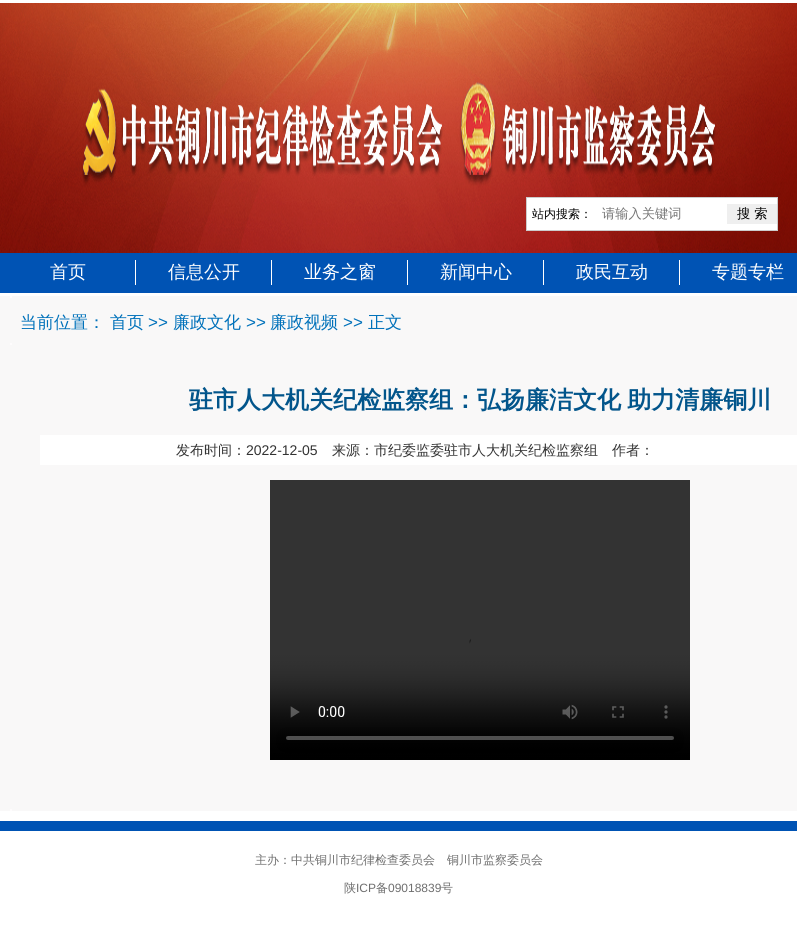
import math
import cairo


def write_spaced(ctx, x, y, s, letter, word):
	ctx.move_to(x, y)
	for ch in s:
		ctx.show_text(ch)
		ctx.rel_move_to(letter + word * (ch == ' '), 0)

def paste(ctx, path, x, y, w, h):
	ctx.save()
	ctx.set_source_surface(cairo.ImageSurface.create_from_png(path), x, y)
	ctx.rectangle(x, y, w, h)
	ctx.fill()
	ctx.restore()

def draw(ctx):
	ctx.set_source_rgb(1, 1, 1)
	ctx.paint()
	paste(ctx, 'media/1.png', 0, 3, 797, 250)
	ctx.set_source_rgb(1, 1, 1)
	ctx.rectangle(526.5, 197.5, 251, 33)
	ctx.fill_preserve()
	ctx.set_source_rgb(0.8, 0.8, 0.8)
	ctx.set_line_width(1)
	ctx.stroke()
	ctx.select_font_face('WenQuanYi Zen Hei Medium')
	ctx.set_font_size(12)
	ctx.set_source_rgb(0, 0, 0)
	ctx.move_to(532, 218)
	ctx.show_text('站内搜索：')
	ctx.set_font_size(13.25)
	ctx.set_source_rgb(0.459, 0.459, 0.459)
	ctx.move_to(602, 218)
	ctx.show_text('请输入关键词')
	ctx.set_source_rgb(0.937, 0.937, 0.937)
	ctx.rectangle(727, 204, 50, 20)
	ctx.fill()
	ctx.set_source_rgb(0, 0, 0)
	ctx.move_to(737, 218)
	ctx.show_text('搜 索')
	ctx.set_source_rgb(0, 0.325, 0.706)
	ctx.rectangle(0, 253, 797, 40)
	ctx.fill()
	ctx.set_source_rgb(1, 1, 1)
	ctx.rectangle(135, 260, 1, 25)
	ctx.fill()
	ctx.set_font_size(18)
	ctx.move_to(50, 278)
	ctx.show_text('首页')
	ctx.rectangle(271, 260, 1, 25)
	ctx.fill()
	ctx.move_to(168, 278)
	ctx.show_text('信息公开')
	ctx.rectangle(407, 260, 1, 25)
	ctx.fill()
	ctx.move_to(304, 278)
	ctx.show_text('业务之窗')
	ctx.rectangle(543, 260, 1, 25)
	ctx.fill()
	ctx.move_to(440, 278)
	ctx.show_text('新闻中心')
	ctx.rectangle(679, 260, 1, 25)
	ctx.fill()
	ctx.move_to(576, 278)
	ctx.show_text('政民互动')
	ctx.move_to(712, 278)
	ctx.show_text('专题专栏')
	ctx.set_source_rgb(0.973, 0.969, 0.969)
	ctx.rectangle(0, 296, 797, 515)
	ctx.fill()
	ctx.set_source_rgb(1, 0.992, 0.996)
	ctx.rectangle(10, 296, 2, 2)
	ctx.fill()
	ctx.set_font_size(17)
	ctx.set_source_rgb(0, 0.443, 0.729)
	ctx.move_to(20, 328)
	ctx.show_text('当前位置：')
	ctx.move_to(110, 328)
	ctx.show_text('首页')
	ctx.select_font_face('Liberation Sans')
	ctx.move_to(148, 328)
	ctx.show_text('>>')
	ctx.select_font_face('WenQuanYi Zen Hei Medium')
	ctx.move_to(173, 328)
	ctx.show_text('廉政文化')
	ctx.select_font_face('Liberation Sans')
	ctx.move_to(246, 328)
	ctx.show_text('>>')
	ctx.select_font_face('WenQuanYi Zen Hei Medium')
	ctx.move_to(270, 328)
	ctx.show_text('廉政视频')
	ctx.select_font_face('Liberation Sans')
	ctx.move_to(343, 328)
	ctx.show_text('>>')
	ctx.select_font_face('WenQuanYi Zen Hei Medium')
	ctx.move_to(368, 328)
	ctx.show_text('正文')
	ctx.set_source_rgb(0.996, 0.988, 0.992)
	ctx.rectangle(10, 343, 2, 2)
	ctx.fill()
	ctx.select_font_face('WenQuanYi Zen Hei', cairo.FONT_SLANT_NORMAL, cairo.FONT_WEIGHT_BOLD)
	ctx.set_font_size(24)
	ctx.set_source_rgb(0.008, 0.333, 0.545)
	write_spaced(ctx, 189, 408, '驻市人大机关纪检监察组：弘扬廉洁文化 助力清廉铜川', 0, -1)
	ctx.set_source_rgb(1, 1, 1)
	ctx.rectangle(40, 435, 757, 30)
	ctx.fill()
	ctx.select_font_face('WenQuanYi Zen Hei Medium')
	ctx.set_font_size(14)
	ctx.set_source_rgb(0.2, 0.2, 0.2)
	ctx.move_to(176, 455)
	ctx.show_text('发布时间：')
	ctx.select_font_face('Liberation Sans')
	ctx.move_to(246, 455)
	ctx.show_text('2022-12-05')
	ctx.select_font_face('WenQuanYi Zen Hei Medium')
	ctx.move_to(332, 455)
	ctx.show_text('来源：市纪委监委驻市人大机关纪检监察组　作者：')
	paste(ctx, 'media/2.png', 270, 480, 420, 280)
	ctx.set_source_rgb(0.996, 0.988, 0.992)
	ctx.rectangle(10, 809, 2, 2)
	ctx.fill()
	ctx.set_source_rgb(0, 0.325, 0.706)
	ctx.rectangle(0, 821, 797, 10)
	ctx.fill()
	ctx.set_font_size(12)
	ctx.set_source_rgb(0.431, 0.431, 0.431)
	ctx.move_to(255, 864)
	ctx.show_text('主办：中共铜川市纪律检查委员会　铜川市监察委员会')
	ctx.move_to(344, 892)
	ctx.show_text('陕')
	ctx.select_font_face('Liberation Sans')
	ctx.move_to(356, 892)
	ctx.show_text('ICP')
	ctx.select_font_face('WenQuanYi Zen Hei Medium')
	ctx.move_to(376, 892)
	ctx.show_text('备')
	ctx.select_font_face('Liberation Sans')
	ctx.move_to(388, 892)
	ctx.show_text('09018839')
	ctx.select_font_face('WenQuanYi Zen Hei Medium')
	ctx.move_to(441, 892)
	ctx.show_text('号')


surface = cairo.ImageSurface(cairo.FORMAT_RGB24, 797, 932)
ctx = cairo.Context(surface)
options = cairo.FontOptions()
options.set_hint_metrics(cairo.HINT_METRICS_OFF)
options.set_hint_style(cairo.HINT_STYLE_NONE)
ctx.set_font_options(options)
ctx.set_miter_limit(4)
draw(ctx)
surface.write_to_png('image.png')
